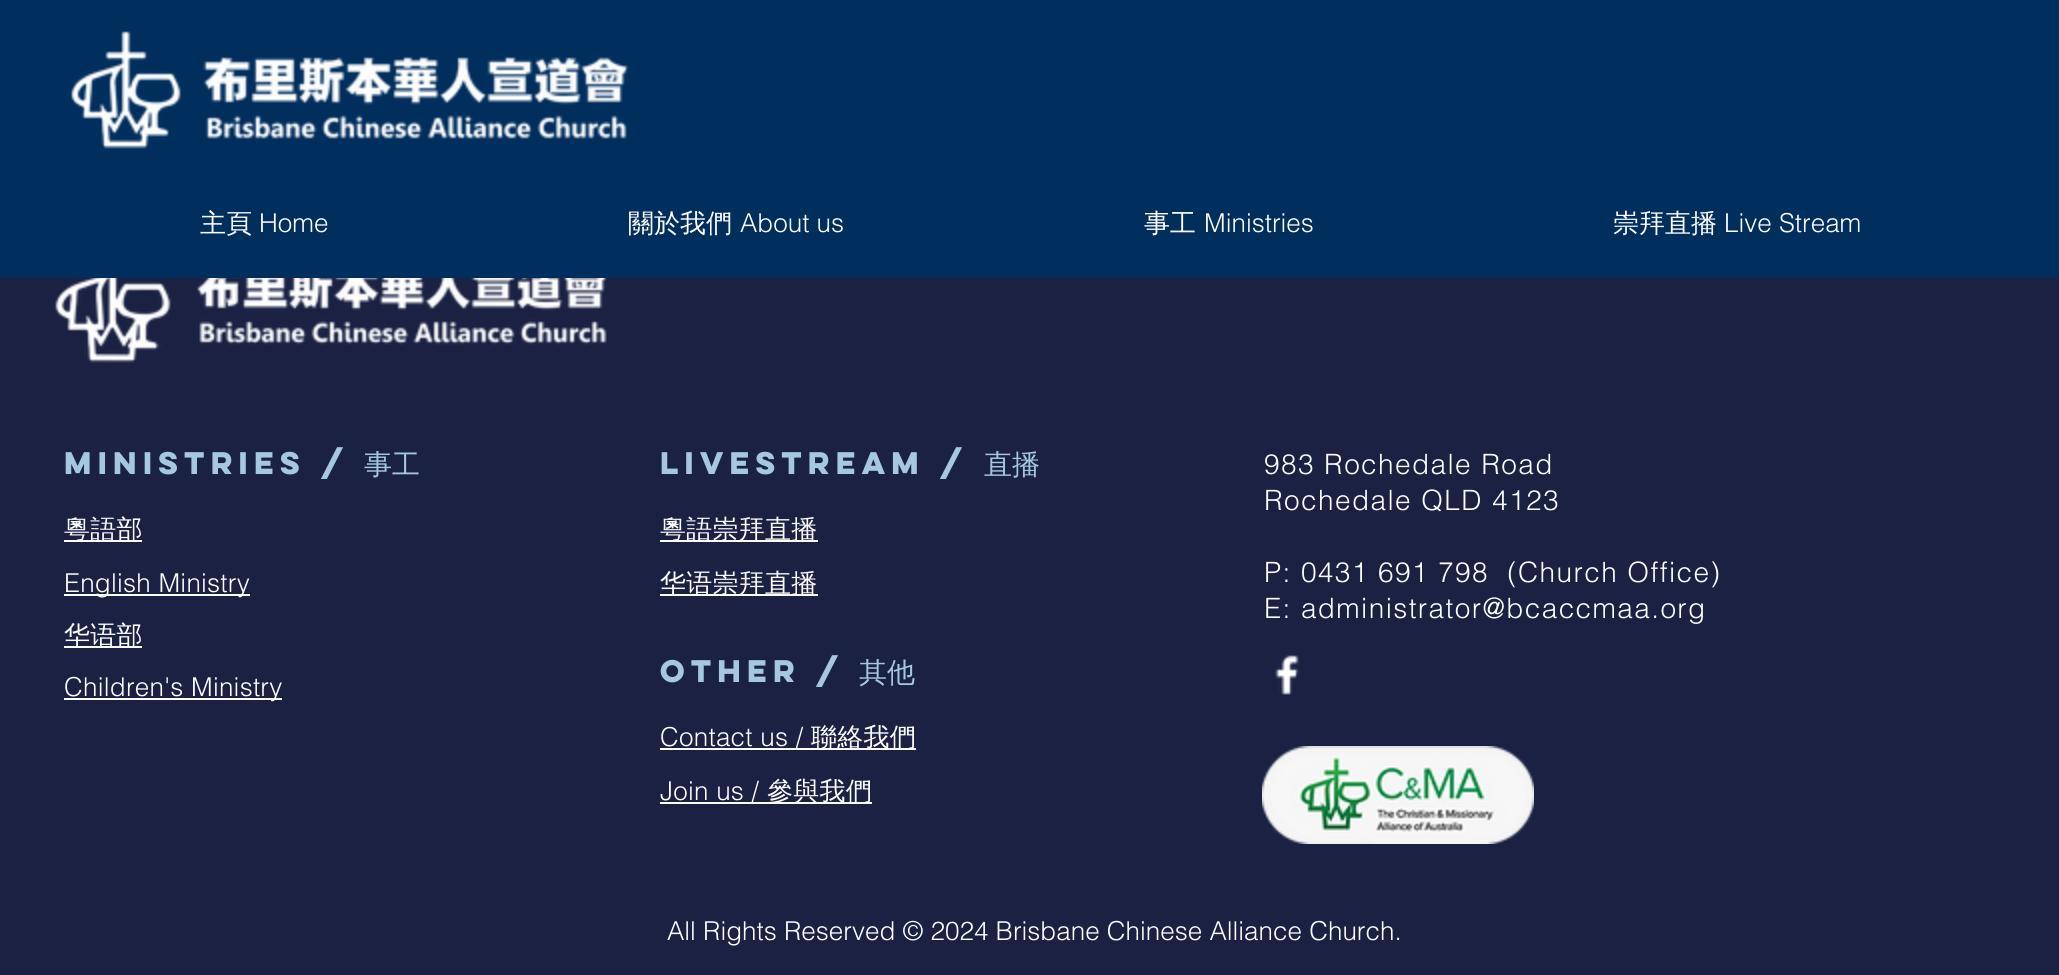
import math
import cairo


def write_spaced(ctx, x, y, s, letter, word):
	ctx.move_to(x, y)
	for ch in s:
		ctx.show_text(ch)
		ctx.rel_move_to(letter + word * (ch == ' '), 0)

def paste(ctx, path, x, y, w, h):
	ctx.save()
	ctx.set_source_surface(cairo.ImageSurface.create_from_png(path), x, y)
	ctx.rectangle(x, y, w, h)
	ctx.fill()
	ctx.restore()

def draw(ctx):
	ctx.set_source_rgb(0.102, 0.129, 0.263)
	ctx.paint()
	ctx.set_source_rgb(0, 0.18, 0.365)
	ctx.rectangle(0, 0, 2059, 278)
	ctx.fill()
	paste(ctx, 'media/1.png', 70, 31, 111, 118)
	paste(ctx, 'media/2.png', 203, 56, 426, 83)
	ctx.select_font_face('WenQuanYi Zen Hei Medium')
	ctx.set_font_size(26)
	ctx.set_source_rgb(1, 1, 1)
	ctx.move_to(200, 232)
	ctx.show_text('主頁')
	ctx.select_font_face('helvetica Light')
	ctx.move_to(259, 232)
	ctx.show_text('Home')
	ctx.select_font_face('WenQuanYi Zen Hei Medium')
	ctx.move_to(628, 232)
	ctx.show_text('關於我們')
	ctx.select_font_face('helvetica Light')
	ctx.move_to(740, 232)
	ctx.show_text('About us')
	ctx.select_font_face('WenQuanYi Zen Hei Medium')
	ctx.move_to(1144, 232)
	ctx.show_text('事工')
	ctx.select_font_face('helvetica Light')
	ctx.move_to(1204, 232)
	ctx.show_text('Ministries')
	ctx.select_font_face('WenQuanYi Zen Hei Medium')
	ctx.move_to(1613, 232)
	ctx.show_text('崇拜直播')
	ctx.select_font_face('helvetica Light')
	ctx.move_to(1724, 232)
	ctx.show_text('Live Stream')
	paste(ctx, 'media/3.png', 55, 278, 116, 85)
	paste(ctx, 'media/4.png', 197, 278, 410, 67)
	ctx.select_font_face('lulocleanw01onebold', cairo.FONT_SLANT_NORMAL, cairo.FONT_WEIGHT_BOLD)
	ctx.set_font_size(28)
	ctx.set_source_rgb(0.647, 0.784, 0.871)
	ctx.move_to(64, 474)
	ctx.show_text('Ministries /')
	ctx.select_font_face('WenQuanYi Zen Hei Medium')
	ctx.move_to(364, 474)
	ctx.show_text('事工')
	ctx.set_source_rgb(1, 1, 1)
	ctx.rectangle(64, 540, 78, 2)
	ctx.fill()
	ctx.set_font_size(26)
	write_spaced(ctx, 64, 538, '粵語部', 0.25, 0)
	ctx.rectangle(64, 594, 186, 2)
	ctx.fill()
	ctx.select_font_face('helvetica Light')
	write_spaced(ctx, 64, 592, 'English Ministry', 0.25, 0)
	ctx.rectangle(64, 646, 78, 2)
	ctx.fill()
	ctx.select_font_face('WenQuanYi Zen Hei Medium')
	write_spaced(ctx, 64, 644, '华语部', 0.25, 0)
	ctx.rectangle(64, 698, 218, 2)
	ctx.fill()
	ctx.select_font_face('helvetica Light')
	write_spaced(ctx, 64, 696, 'Children\'s Ministry', 0.25, 0)
	ctx.select_font_face('lulocleanw01onebold', cairo.FONT_SLANT_NORMAL, cairo.FONT_WEIGHT_BOLD)
	ctx.set_font_size(28)
	ctx.set_source_rgb(0.647, 0.784, 0.871)
	ctx.move_to(660, 474)
	ctx.show_text('Livestream /')
	ctx.select_font_face('WenQuanYi Zen Hei Medium')
	ctx.move_to(984, 474)
	ctx.show_text('直播')
	ctx.set_source_rgb(1, 1, 1)
	ctx.rectangle(660, 540, 158, 2)
	ctx.fill()
	ctx.set_font_size(26)
	write_spaced(ctx, 660, 538, '粵語崇拜直播', 0.25, 0)
	ctx.rectangle(660, 594, 158, 2)
	ctx.fill()
	write_spaced(ctx, 660, 592, '华语崇拜直播', 0.25, 0)
	ctx.select_font_face('lulocleanw01onebold', cairo.FONT_SLANT_NORMAL, cairo.FONT_WEIGHT_BOLD)
	ctx.set_font_size(28)
	ctx.set_source_rgb(0.647, 0.784, 0.871)
	ctx.move_to(660, 682)
	ctx.show_text('other /')
	ctx.select_font_face('WenQuanYi Zen Hei Medium')
	ctx.move_to(859, 682)
	ctx.show_text('其他')
	ctx.set_source_rgb(1, 1, 1)
	ctx.rectangle(660, 748, 256, 2)
	ctx.fill()
	ctx.select_font_face('helvetica Light')
	ctx.set_font_size(26)
	write_spaced(ctx, 660, 746, 'Contact us /', 0.25, 0)
	ctx.select_font_face('WenQuanYi Zen Hei Medium')
	write_spaced(ctx, 811, 746, '聯絡我們', 0.25, 0)
	ctx.rectangle(660, 802, 212, 2)
	ctx.fill()
	ctx.select_font_face('helvetica Light')
	write_spaced(ctx, 660, 800, 'Join us /', 0.25, 0)
	ctx.select_font_face('WenQuanYi Zen Hei Medium')
	write_spaced(ctx, 767, 800, '參與我們', 0.25, 0)
	ctx.select_font_face('helvetica Light')
	ctx.set_font_size(28)
	for x, y, s in [
		(1264, 474, '983 Rochedale Road'),
		(1264, 510, 'Rochedale QLD 4123'),
		(1264, 582, 'P: 0431 691 798  (Church Office)'),
		(1264, 618, 'E: administrator@bcaccmaa.org'),
	]:
		write_spaced(ctx, x, y, s, 1.4, 0)
	paste(ctx, 'media/5.png', 1275, 655, 24, 40)
	paste(ctx, 'media/6.png', 1262, 746, 272, 98)
	ctx.set_font_size(26)
	ctx.move_to(667, 940)
	ctx.show_text('All Rights Reserved © 2024 Brisbane Chinese Alliance Church.')


surface = cairo.ImageSurface(cairo.FORMAT_RGB24, 2059, 975)
ctx = cairo.Context(surface)
options = cairo.FontOptions()
options.set_hint_metrics(cairo.HINT_METRICS_OFF)
options.set_hint_style(cairo.HINT_STYLE_NONE)
ctx.set_font_options(options)
ctx.set_miter_limit(4)
draw(ctx)
surface.write_to_png('image.png')
